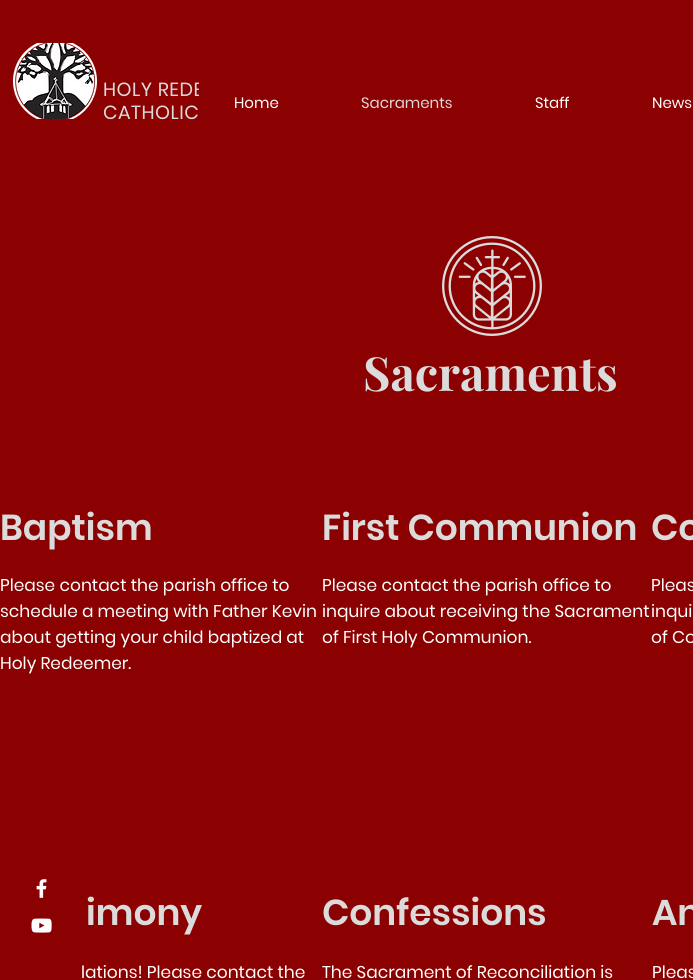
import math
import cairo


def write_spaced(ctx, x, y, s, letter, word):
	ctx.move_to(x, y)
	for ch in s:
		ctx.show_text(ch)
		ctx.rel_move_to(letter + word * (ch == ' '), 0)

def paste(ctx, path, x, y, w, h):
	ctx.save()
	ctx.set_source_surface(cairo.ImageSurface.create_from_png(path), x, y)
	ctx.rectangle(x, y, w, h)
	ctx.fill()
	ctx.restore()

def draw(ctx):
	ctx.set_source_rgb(0.545, 0, 0)
	ctx.paint()
	paste(ctx, 'media/1.png', 13, 43, 84, 76)
	ctx.select_font_face('Poppins')
	ctx.set_font_size(19)
	ctx.set_source_rgb(0.859, 0.859, 0.859)
	write_spaced(ctx, 103, 96, 'HOLY REDE', 0.5, 0)
	write_spaced(ctx, 103, 119, 'CATHOLIC', 0.5, 0)
	ctx.set_source_rgb(0.545, 0, 0)
	ctx.rectangle(199, 82, 4, 14)
	ctx.fill()
	ctx.set_font_size(15)
	ctx.set_source_rgb(1, 1, 1)
	ctx.move_to(234, 108)
	ctx.show_text('Home')
	ctx.set_source_rgb(0.859, 0.859, 0.859)
	ctx.move_to(361, 108)
	ctx.show_text('Sacraments')
	ctx.set_source_rgb(1, 1, 1)
	ctx.move_to(535, 108)
	ctx.show_text('Staff')
	ctx.move_to(652, 108)
	ctx.show_text('News')
	paste(ctx, 'media/2.png', 442, 236, 100, 100)
	ctx.select_font_face('Playfair Display', cairo.FONT_SLANT_NORMAL, cairo.FONT_WEIGHT_BOLD)
	ctx.set_font_size(47)
	ctx.set_source_rgb(0.859, 0.859, 0.859)
	ctx.move_to(363, 391)
	ctx.show_text('Sacraments')
	ctx.select_font_face('Poppins SemiBold')
	ctx.set_font_size(36)
	ctx.move_to(0, 540)
	ctx.show_text('Baptism')
	ctx.select_font_face('Poppins')
	ctx.set_font_size(17)
	ctx.set_source_rgb(1, 1, 1)
	for x, y, s in [
		(0, 591, 'Please contact the parish office to'),
		(0, 617, 'schedule a meeting with Father Kevin'),
		(0, 643, 'about getting your child baptized at'),
		(0, 669, 'Holy Redeemer.'),
	]:
		ctx.move_to(x, y)
		ctx.show_text(s)
	ctx.select_font_face('Poppins SemiBold')
	ctx.set_font_size(36)
	ctx.set_source_rgb(0.859, 0.859, 0.859)
	ctx.move_to(322, 540)
	ctx.show_text('First Communion')
	ctx.select_font_face('Poppins')
	ctx.set_font_size(17)
	ctx.set_source_rgb(1, 1, 1)
	for x, y, s in [
		(322, 591, 'Please contact the parish office to'),
		(322, 617, 'inquire about receiving the Sacrament'),
		(322, 643, 'of First Holy Communion.'),
	]:
		ctx.move_to(x, y)
		ctx.show_text(s)
	ctx.select_font_face('Poppins SemiBold')
	ctx.set_font_size(36)
	ctx.set_source_rgb(0.859, 0.859, 0.859)
	ctx.move_to(651, 540)
	ctx.show_text('Co')
	ctx.select_font_face('Poppins')
	ctx.set_font_size(17)
	ctx.set_source_rgb(1, 1, 1)
	for x, y, s in [
		(651, 591, 'Pleas'),
		(651, 617, 'inqui'),
		(651, 643, 'of Co'),
	]:
		ctx.move_to(x, y)
		ctx.show_text(s)
	ctx.select_font_face('Poppins SemiBold')
	ctx.set_font_size(36)
	ctx.set_source_rgb(0.859, 0.859, 0.859)
	ctx.move_to(86, 925)
	ctx.show_text('imony')
	ctx.select_font_face('Poppins')
	ctx.set_font_size(17)
	ctx.set_source_rgb(1, 1, 1)
	ctx.move_to(81, 978)
	ctx.show_text('lations! Please contact the')
	ctx.select_font_face('Poppins SemiBold')
	ctx.set_font_size(36)
	ctx.set_source_rgb(0.859, 0.859, 0.859)
	ctx.move_to(322, 925)
	ctx.show_text('Confessions')
	ctx.select_font_face('Poppins')
	ctx.set_font_size(17)
	ctx.set_source_rgb(1, 1, 1)
	ctx.move_to(322, 978)
	ctx.show_text('The Sacrament of Reconciliation is')
	ctx.select_font_face('Poppins SemiBold')
	ctx.set_font_size(36)
	ctx.set_source_rgb(0.859, 0.859, 0.859)
	ctx.move_to(652, 925)
	ctx.show_text('An')
	ctx.select_font_face('Poppins')
	ctx.set_font_size(17)
	ctx.set_source_rgb(1, 1, 1)
	ctx.move_to(652, 978)
	ctx.show_text('Pleas')
	paste(ctx, 'media/3.png', 36, 879, 11, 19)
	paste(ctx, 'media/4.png', 31, 918, 21, 15)


surface = cairo.ImageSurface(cairo.FORMAT_RGB24, 693, 980)
ctx = cairo.Context(surface)
options = cairo.FontOptions()
options.set_hint_metrics(cairo.HINT_METRICS_OFF)
options.set_hint_style(cairo.HINT_STYLE_NONE)
ctx.set_font_options(options)
ctx.set_miter_limit(4)
draw(ctx)
surface.write_to_png('image.png')
